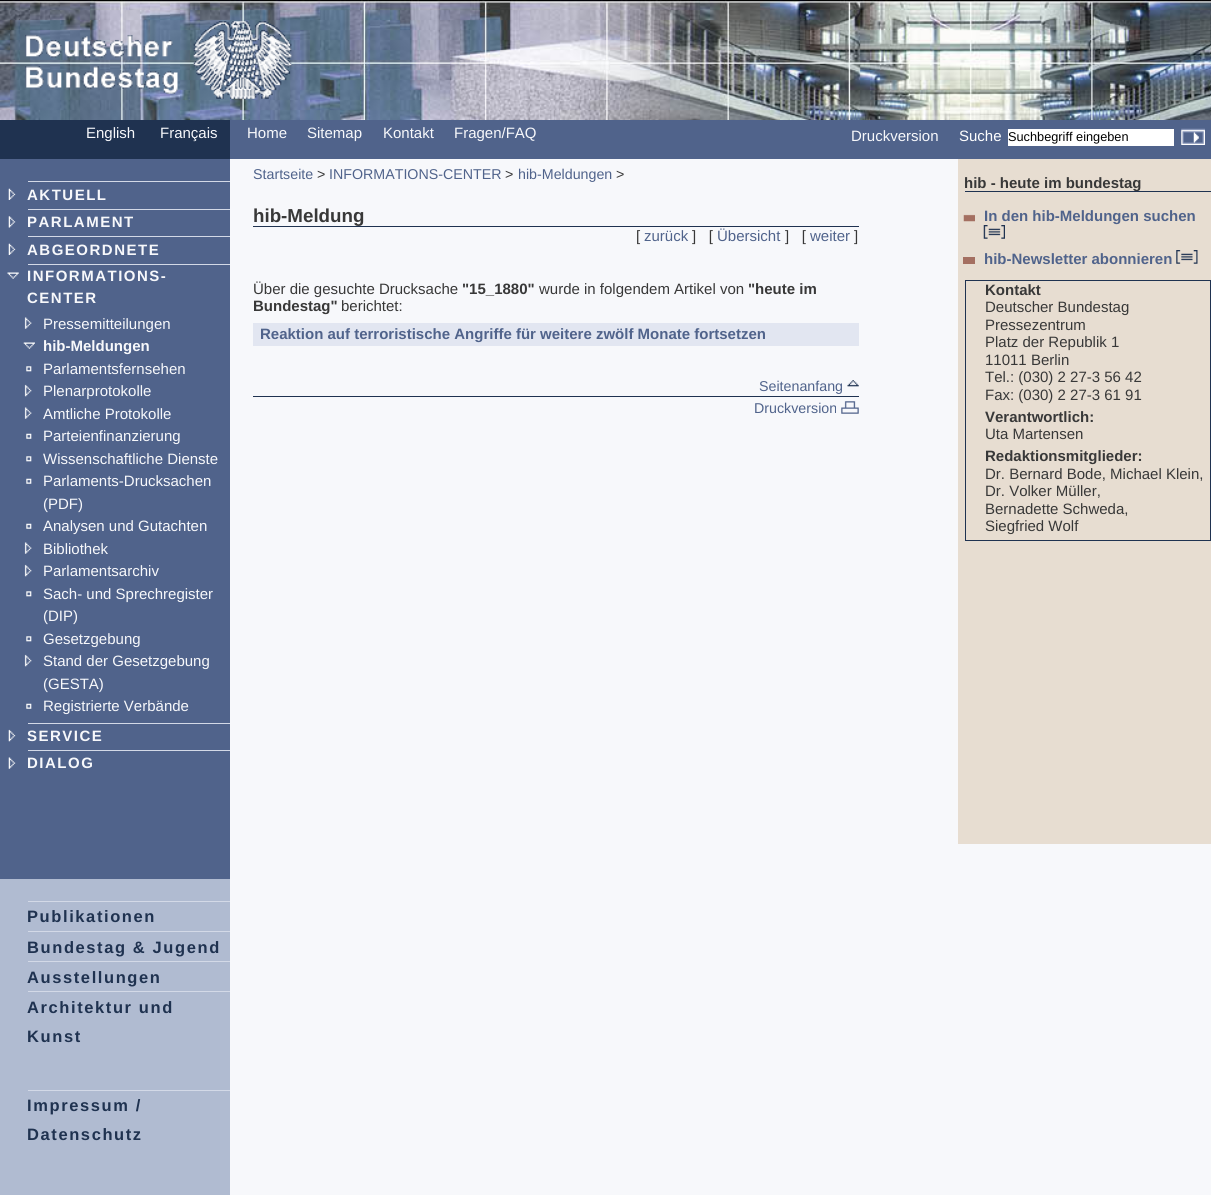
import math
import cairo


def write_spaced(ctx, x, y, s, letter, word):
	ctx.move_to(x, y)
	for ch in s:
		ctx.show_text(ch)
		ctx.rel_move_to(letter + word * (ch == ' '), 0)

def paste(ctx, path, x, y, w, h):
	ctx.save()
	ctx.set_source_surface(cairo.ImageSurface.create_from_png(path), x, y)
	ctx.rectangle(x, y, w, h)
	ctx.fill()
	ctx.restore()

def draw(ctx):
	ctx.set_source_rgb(0.965, 0.969, 0.984)
	ctx.paint()
	paste(ctx, 'media/1.png', 0, 0, 1211, 120)
	paste(ctx, 'media/2.png', 25, 21, 267, 78)
	ctx.set_source_rgb(0.314, 0.388, 0.545)
	ctx.rectangle(230, 120, 981, 39)
	ctx.fill()
	ctx.set_source_rgb(0.122, 0.196, 0.314)
	ctx.rectangle(0, 120, 230, 39)
	ctx.fill()
	ctx.select_font_face('Liberation Sans')
	ctx.set_font_size(15)
	ctx.set_source_rgb(0.965, 0.969, 0.984)
	for x, y, s in [
		(86, 138, 'English'),
		(160, 138, 'Français'),
		(247, 138, 'Home'),
		(307, 138, 'Sitemap'),
		(383, 138, 'Kontakt'),
		(454, 138, 'Fragen/FAQ'),
		(851, 141, 'Druckversion'),
	]:
		ctx.move_to(x, y)
		ctx.show_text(s)
	ctx.set_source_rgb(1, 1, 1)
	ctx.move_to(959, 141)
	ctx.show_text('Suche')
	ctx.rectangle(1008, 129, 166, 17)
	ctx.fill()
	ctx.set_font_size(12.75)
	ctx.set_source_rgb(0, 0, 0)
	ctx.move_to(1008, 141)
	ctx.show_text('Suchbegriff eingeben')
	paste(ctx, 'media/3.png', 1181, 128, 24, 17)
	ctx.set_source_rgb(0.69, 0.733, 0.82)
	ctx.rectangle(0, 879, 230, 316)
	ctx.fill()
	ctx.set_source_rgb(0.314, 0.388, 0.545)
	ctx.rectangle(0, 159, 230, 720)
	ctx.fill()
	ctx.set_source_rgb(0.827, 0.851, 0.906)
	ctx.rectangle(28, 181, 202, 1)
	ctx.fill()
	paste(ctx, 'media/4.png', 8, 188, 8, 12)
	ctx.select_font_face('Liberation Sans', cairo.FONT_SLANT_NORMAL, cairo.FONT_WEIGHT_BOLD)
	ctx.set_font_size(15)
	ctx.set_source_rgb(0.965, 0.969, 0.984)
	write_spaced(ctx, 27, 200, 'AKTUELL', 1.5, 0)
	ctx.set_source_rgb(0.827, 0.851, 0.906)
	ctx.rectangle(28, 209, 202, 1)
	ctx.fill()
	paste(ctx, 'media/5.png', 8, 216, 8, 12)
	ctx.set_source_rgb(0.965, 0.969, 0.984)
	write_spaced(ctx, 27, 227, 'PARLAMENT', 1.5, 0)
	ctx.set_source_rgb(0.827, 0.851, 0.906)
	ctx.rectangle(28, 236, 202, 1)
	ctx.fill()
	paste(ctx, 'media/4.png', 8, 243, 8, 12)
	ctx.set_source_rgb(0.965, 0.969, 0.984)
	write_spaced(ctx, 27, 255, 'ABGEORDNETE', 1.5, 0)
	ctx.set_source_rgb(0.827, 0.851, 0.906)
	ctx.rectangle(28, 264, 202, 1)
	ctx.fill()
	paste(ctx, 'media/6.png', 7, 272, 12, 7)
	ctx.set_source_rgb(0.965, 0.969, 0.984)
	write_spaced(ctx, 27, 281, 'INFORMATIONS-', 1.5, 0)
	write_spaced(ctx, 27, 303, 'CENTER', 1.5, 0)
	paste(ctx, 'media/7.png', 24, 317, 8, 12)
	ctx.select_font_face('Liberation Sans')
	ctx.move_to(43, 329)
	ctx.show_text('Pressemitteilungen')
	paste(ctx, 'media/8.png', 23, 342, 12, 7)
	ctx.select_font_face('Liberation Sans', cairo.FONT_SLANT_NORMAL, cairo.FONT_WEIGHT_BOLD)
	ctx.move_to(43, 351)
	ctx.show_text('hib-Meldungen')
	paste(ctx, 'media/9.png', 26, 366, 6, 6)
	ctx.select_font_face('Liberation Sans')
	ctx.move_to(43, 374)
	ctx.show_text('Parlamentsfernsehen')
	paste(ctx, 'media/10.png', 24, 384, 8, 13)
	ctx.move_to(43, 396)
	ctx.show_text('Plenarprotokolle')
	paste(ctx, 'media/7.png', 24, 407, 8, 12)
	ctx.move_to(43, 419)
	ctx.show_text('Amtliche Protokolle')
	paste(ctx, 'media/11.png', 26, 433, 6, 6)
	ctx.move_to(43, 441)
	ctx.show_text('Parteienfinanzierung')
	paste(ctx, 'media/9.png', 26, 456, 6, 6)
	ctx.move_to(43, 464)
	ctx.show_text('Wissenschaftliche Dienste')
	paste(ctx, 'media/11.png', 26, 478, 6, 6)
	ctx.move_to(43, 486)
	ctx.show_text('Parlaments-Drucksachen')
	ctx.move_to(43, 509)
	ctx.show_text('(PDF)')
	paste(ctx, 'media/11.png', 26, 523, 6, 6)
	ctx.move_to(43, 531)
	ctx.show_text('Analysen und Gutachten')
	paste(ctx, 'media/7.png', 24, 542, 8, 12)
	ctx.move_to(43, 554)
	ctx.show_text('Bibliothek')
	paste(ctx, 'media/10.png', 24, 564, 8, 13)
	ctx.move_to(43, 576)
	ctx.show_text('Parlamentsarchiv')
	paste(ctx, 'media/12.png', 26, 591, 6, 6)
	ctx.move_to(43, 599)
	ctx.show_text('Sach- und Sprechregister')
	ctx.move_to(43, 621)
	ctx.show_text('(DIP)')
	paste(ctx, 'media/9.png', 26, 636, 6, 6)
	ctx.move_to(43, 644)
	ctx.show_text('Gesetzgebung')
	paste(ctx, 'media/10.png', 24, 654, 8, 13)
	ctx.move_to(43, 666)
	ctx.show_text('Stand der Gesetzgebung')
	ctx.move_to(43, 689)
	ctx.show_text('(GESTA)')
	paste(ctx, 'media/11.png', 26, 703, 6, 6)
	ctx.move_to(43, 711)
	ctx.show_text('Registrierte Verbände')
	ctx.set_source_rgb(0.827, 0.851, 0.906)
	ctx.rectangle(28, 723, 202, 1)
	ctx.fill()
	paste(ctx, 'media/13.png', 8, 729, 8, 13)
	ctx.select_font_face('Liberation Sans', cairo.FONT_SLANT_NORMAL, cairo.FONT_WEIGHT_BOLD)
	ctx.set_source_rgb(0.965, 0.969, 0.984)
	write_spaced(ctx, 27, 741, 'SERVICE', 1.5, 0)
	ctx.set_source_rgb(0.827, 0.851, 0.906)
	ctx.rectangle(28, 750, 202, 1)
	ctx.fill()
	paste(ctx, 'media/14.png', 8, 757, 8, 12)
	ctx.set_source_rgb(0.965, 0.969, 0.984)
	write_spaced(ctx, 27, 768, 'DIALOG', 1.5, 0)
	ctx.set_source_rgb(0.827, 0.851, 0.906)
	ctx.rectangle(28, 901, 202, 1)
	ctx.fill()
	ctx.set_font_size(16.5)
	ctx.set_source_rgb(0.122, 0.196, 0.314)
	write_spaced(ctx, 27, 922, 'Publikationen', 1.6, 0)
	ctx.set_source_rgb(0.827, 0.851, 0.906)
	ctx.rectangle(28, 931, 202, 1)
	ctx.fill()
	ctx.set_source_rgb(0.122, 0.196, 0.314)
	write_spaced(ctx, 27, 953, 'Bundestag & Jugend', 1.6, 0)
	ctx.set_source_rgb(0.827, 0.851, 0.906)
	ctx.rectangle(28, 961, 202, 1)
	ctx.fill()
	ctx.set_source_rgb(0.122, 0.196, 0.314)
	write_spaced(ctx, 27, 983, 'Ausstellungen', 1.6, 0)
	ctx.set_source_rgb(0.827, 0.851, 0.906)
	ctx.rectangle(28, 991, 202, 1)
	ctx.fill()
	ctx.set_source_rgb(0.122, 0.196, 0.314)
	write_spaced(ctx, 27, 1013, 'Architektur und', 1.6, 0)
	write_spaced(ctx, 27, 1042, 'Kunst', 1.6, 0)
	ctx.set_source_rgb(0.827, 0.851, 0.906)
	ctx.rectangle(28, 1090, 202, 1)
	ctx.fill()
	ctx.set_source_rgb(0.122, 0.196, 0.314)
	write_spaced(ctx, 27, 1111, 'Impressum /', 1.6, 0)
	write_spaced(ctx, 27, 1140, 'Datenschutz', 1.6, 0)
	ctx.select_font_face('Liberation Sans')
	ctx.set_font_size(14.25)
	ctx.set_source_rgb(0.314, 0.388, 0.545)
	ctx.move_to(253, 179)
	ctx.show_text('Startseite')
	ctx.set_source_rgb(0.22, 0.22, 0.22)
	ctx.move_to(317, 179)
	ctx.show_text('>')
	ctx.set_source_rgb(0.314, 0.388, 0.545)
	ctx.move_to(329, 179)
	ctx.show_text('INFORMATIONS-CENTER')
	ctx.set_source_rgb(0.22, 0.22, 0.22)
	ctx.move_to(505, 179)
	ctx.show_text('>')
	ctx.set_source_rgb(0.314, 0.388, 0.545)
	ctx.move_to(518, 179)
	ctx.show_text('hib-Meldungen')
	ctx.set_source_rgb(0.22, 0.22, 0.22)
	ctx.move_to(616, 179)
	ctx.show_text('>')
	ctx.select_font_face('Liberation Sans', cairo.FONT_SLANT_NORMAL, cairo.FONT_WEIGHT_BOLD)
	ctx.set_font_size(18.75)
	ctx.move_to(253, 222)
	ctx.show_text('hib-Meldung')
	ctx.set_source_rgb(0.122, 0.196, 0.314)
	ctx.rectangle(253, 226, 606, 1)
	ctx.fill()
	ctx.select_font_face('Liberation Sans')
	ctx.set_font_size(15)
	ctx.set_source_rgb(0.22, 0.22, 0.22)
	ctx.move_to(636, 241)
	ctx.show_text('[')
	ctx.set_source_rgb(0.314, 0.388, 0.545)
	ctx.move_to(644, 241)
	ctx.show_text('zurück')
	ctx.set_source_rgb(0.22, 0.22, 0.22)
	ctx.move_to(692, 241)
	ctx.show_text(']   [')
	ctx.set_source_rgb(0.314, 0.388, 0.545)
	ctx.move_to(717, 241)
	ctx.show_text('Übersicht')
	ctx.set_source_rgb(0.22, 0.22, 0.22)
	ctx.move_to(785, 241)
	ctx.show_text(']   [')
	ctx.set_source_rgb(0.314, 0.388, 0.545)
	ctx.move_to(810, 241)
	ctx.show_text('weiter')
	ctx.set_source_rgb(0.22, 0.22, 0.22)
	ctx.move_to(854, 241)
	ctx.show_text(']')
	ctx.move_to(253, 294)
	ctx.show_text('Über die gesuchte Drucksache')
	ctx.select_font_face('Liberation Sans', cairo.FONT_SLANT_NORMAL, cairo.FONT_WEIGHT_BOLD)
	ctx.move_to(462, 294)
	ctx.show_text('"15_1880"')
	ctx.select_font_face('Liberation Sans')
	ctx.move_to(539, 294)
	ctx.show_text('wurde in folgendem Artikel von')
	ctx.select_font_face('Liberation Sans', cairo.FONT_SLANT_NORMAL, cairo.FONT_WEIGHT_BOLD)
	ctx.move_to(748, 294)
	ctx.show_text('"heute im')
	ctx.move_to(253, 311)
	ctx.show_text('Bundestag"')
	ctx.select_font_face('Liberation Sans')
	ctx.move_to(341, 311)
	ctx.show_text('berichtet:')
	ctx.set_source_rgb(0.886, 0.902, 0.945)
	ctx.rectangle(253, 323, 606, 23)
	ctx.fill()
	ctx.select_font_face('Liberation Sans', cairo.FONT_SLANT_NORMAL, cairo.FONT_WEIGHT_BOLD)
	ctx.set_source_rgb(0.314, 0.388, 0.545)
	ctx.move_to(260, 339)
	ctx.show_text('Reaktion auf terroristische Angriffe für weitere zwölf Monate fortsetzen')
	ctx.set_source_rgb(0.122, 0.196, 0.314)
	ctx.rectangle(253, 396, 606, 1)
	ctx.fill()
	ctx.select_font_face('Liberation Sans')
	ctx.set_font_size(14.25)
	ctx.set_source_rgb(0.314, 0.388, 0.545)
	ctx.move_to(759, 391)
	ctx.show_text('Seitenanfang')
	paste(ctx, 'media/15.png', 847, 380, 12, 7)
	ctx.move_to(754, 413)
	ctx.show_text('Druckversion')
	paste(ctx, 'media/16.png', 841, 401, 18, 13)
	ctx.set_source_rgb(0.906, 0.867, 0.82)
	ctx.rectangle(958, 159, 253, 685)
	ctx.fill()
	ctx.set_source_rgb(0.122, 0.196, 0.314)
	ctx.rectangle(965, 191, 246, 1)
	ctx.fill()
	ctx.select_font_face('Liberation Sans', cairo.FONT_SLANT_NORMAL, cairo.FONT_WEIGHT_BOLD)
	ctx.set_font_size(15)
	ctx.set_source_rgb(0.22, 0.22, 0.22)
	ctx.move_to(964, 188)
	ctx.show_text('hib - heute im bundestag')
	paste(ctx, 'media/17.png', 963, 214, 12, 8)
	ctx.set_source_rgb(0.314, 0.388, 0.545)
	ctx.move_to(984, 221)
	ctx.show_text('In den hib-Meldungen suchen')
	paste(ctx, 'media/18.png', 983, 225, 22, 14)
	ctx.set_source_rgb(0.643, 0.435, 0.38)
	ctx.rectangle(963, 257, 12, 7)
	ctx.fill()
	ctx.set_source_rgb(0.314, 0.388, 0.545)
	ctx.move_to(984, 264)
	ctx.show_text('hib-Newsletter abonnieren')
	paste(ctx, 'media/19.png', 1176, 250, 22, 14)
	ctx.rectangle(965.5, 280.5, 245, 260)
	ctx.set_source_rgb(0.122, 0.196, 0.314)
	ctx.set_line_width(1)
	ctx.stroke()
	ctx.set_source_rgb(0.22, 0.22, 0.22)
	ctx.move_to(985, 295)
	ctx.show_text('Kontakt')
	ctx.select_font_face('Liberation Sans')
	for x, y, s in [
		(985, 312, 'Deutscher Bundestag'),
		(985, 330, 'Pressezentrum'),
		(985, 347, 'Platz der Republik 1'),
		(985, 365, '11011 Berlin'),
		(985, 382, 'Tel.: (030) 2 27-3 56 42'),
		(985, 400, 'Fax: (030) 2 27-3 61 91'),
	]:
		ctx.move_to(x, y)
		ctx.show_text(s)
	ctx.select_font_face('Liberation Sans', cairo.FONT_SLANT_NORMAL, cairo.FONT_WEIGHT_BOLD)
	ctx.move_to(985, 422)
	ctx.show_text('Verantwortlich:')
	ctx.select_font_face('Liberation Sans')
	ctx.move_to(985, 439)
	ctx.show_text('Uta Martensen')
	ctx.select_font_face('Liberation Sans', cairo.FONT_SLANT_NORMAL, cairo.FONT_WEIGHT_BOLD)
	ctx.move_to(985, 461)
	ctx.show_text('Redaktionsmitglieder:')
	ctx.select_font_face('Liberation Sans')
	for x, y, s in [
		(985, 479, 'Dr. Bernard Bode, Michael Klein,'),
		(985, 496, 'Dr. Volker Müller,'),
		(985, 514, 'Bernadette Schweda,'),
		(985, 531, 'Siegfried Wolf'),
	]:
		ctx.move_to(x, y)
		ctx.show_text(s)


surface = cairo.ImageSurface(cairo.FORMAT_RGB24, 1211, 1195)
ctx = cairo.Context(surface)
options = cairo.FontOptions()
options.set_hint_metrics(cairo.HINT_METRICS_OFF)
options.set_hint_style(cairo.HINT_STYLE_NONE)
ctx.set_font_options(options)
ctx.set_miter_limit(4)
draw(ctx)
surface.write_to_png('image.png')
